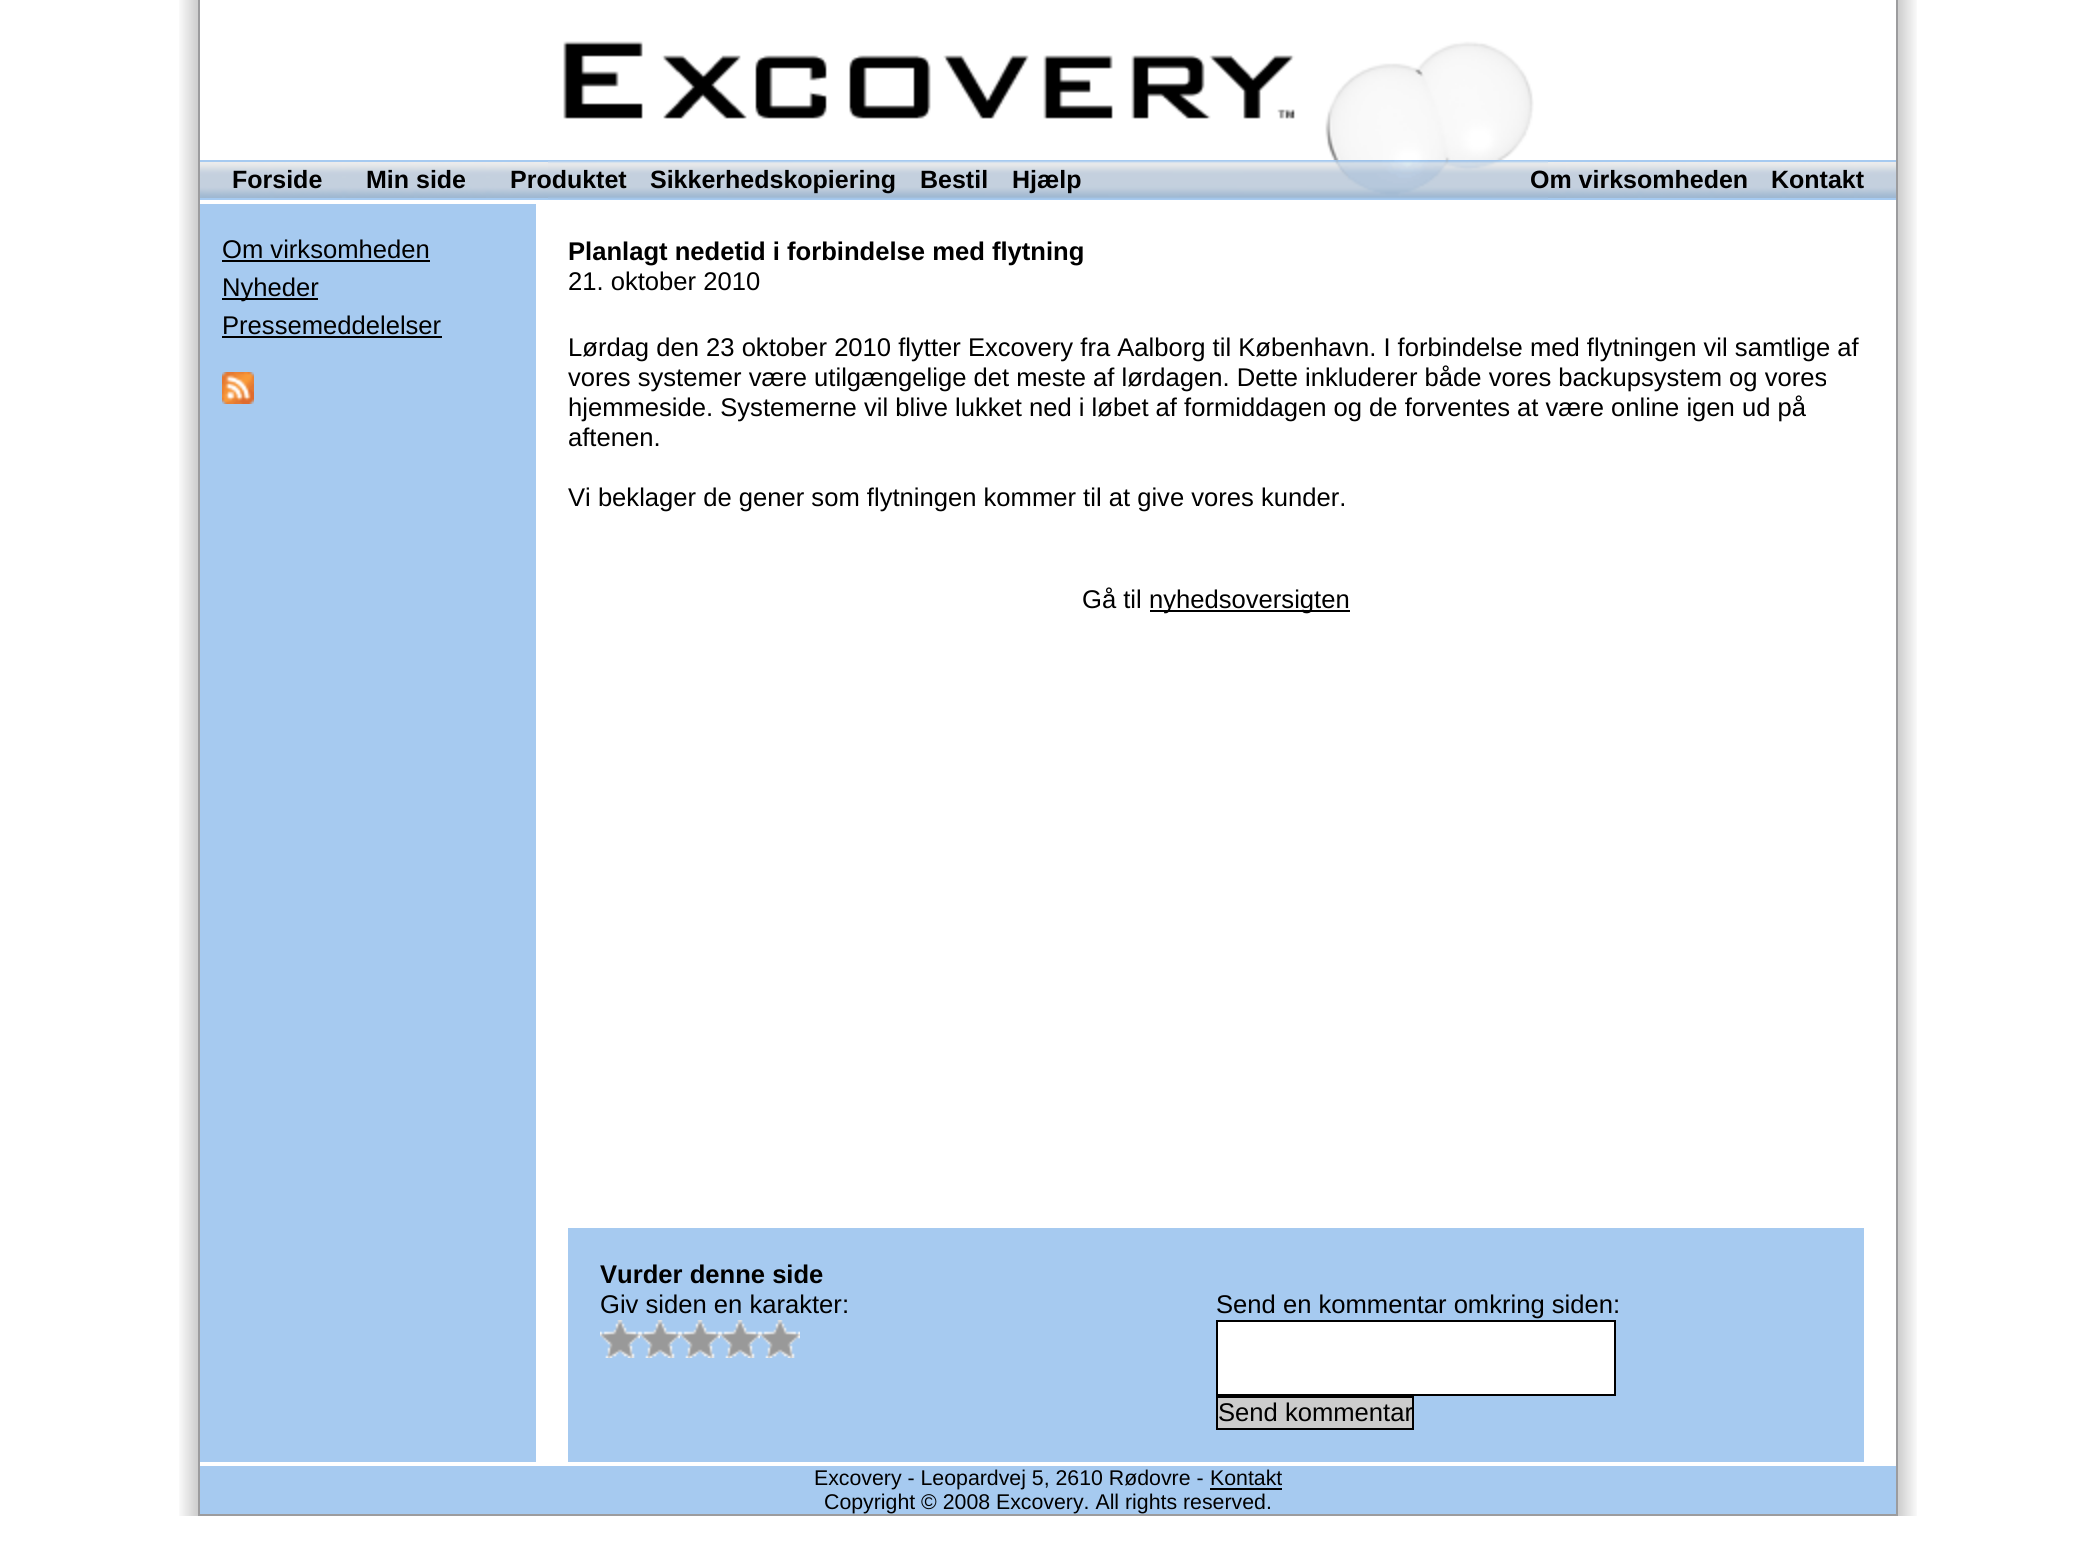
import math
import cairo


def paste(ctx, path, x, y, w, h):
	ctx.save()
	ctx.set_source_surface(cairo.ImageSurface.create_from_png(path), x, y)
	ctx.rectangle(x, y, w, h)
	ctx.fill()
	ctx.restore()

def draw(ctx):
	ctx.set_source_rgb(1, 1, 1)
	ctx.paint()
	paste(ctx, 'media/1.png', 179, 0, 19, 1516)
	ctx.set_source_rgb(0.612, 0.612, 0.62)
	ctx.rectangle(1896, 0, 2, 1516)
	ctx.rectangle(198, 1514, 1700, 2)
	ctx.rectangle(198, 0, 2, 1516)
	ctx.fill()
	paste(ctx, 'media/2.png', 563, 41, 971, 119)
	ctx.set_source_rgb(0.651, 0.792, 0.941)
	ctx.rectangle(200, 160, 1696, 40)
	ctx.fill()
	paste(ctx, 'media/3.png', 200, 162, 1696, 36)
	paste(ctx, 'media/4.png', 548, 160, 1000, 39)
	ctx.select_font_face('Liberation Sans', cairo.FONT_SLANT_NORMAL, cairo.FONT_WEIGHT_BOLD)
	ctx.set_font_size(25)
	ctx.set_source_rgb(0, 0, 0)
	for x, y, s in [
		(232, 188, 'Forside'),
		(366, 188, 'Min side'),
		(510, 188, 'Produktet'),
		(650, 188, 'Sikkerhedskopiering'),
		(920, 188, 'Bestil'),
		(1012, 188, 'Hjælp'),
		(1530, 188, 'Om virksomheden'),
		(1771, 188, 'Kontakt'),
	]:
		ctx.move_to(x, y)
		ctx.show_text(s)
	ctx.set_source_rgb(0.651, 0.792, 0.941)
	ctx.rectangle(200, 204, 336, 1258)
	ctx.fill()
	ctx.select_font_face('Liberation Sans')
	ctx.set_font_size(25.6)
	ctx.set_source_rgb(0, 0, 0)
	ctx.move_to(222, 258)
	ctx.show_text('Om virksomheden')
	ctx.rectangle(222, 260, 208, 2)
	ctx.fill()
	ctx.rectangle(222, 298, 96, 2)
	ctx.fill()
	ctx.move_to(222, 296)
	ctx.show_text('Nyheder')
	ctx.move_to(222, 334)
	ctx.show_text('Pressemeddelelser')
	ctx.rectangle(222, 336, 220, 2)
	ctx.fill()
	paste(ctx, 'media/5.png', 222, 372, 32, 32)
	ctx.select_font_face('Liberation Sans', cairo.FONT_SLANT_NORMAL, cairo.FONT_WEIGHT_BOLD)
	ctx.move_to(568, 260)
	ctx.show_text('Planlagt nedetid i forbindelse med flytning')
	ctx.select_font_face('Liberation Sans')
	for x, y, s in [
		(568, 290, '21. oktober 2010'),
		(568, 356, 'Lørdag den 23 oktober 2010 flytter Excovery fra Aalborg til København. I forbindelse med flytningen vil samtlige af'),
		(568, 386, 'vores systemer være utilgængelige det meste af lørdagen. Dette inkluderer både vores backupsystem og vores'),
		(568, 416, 'hjemmeside. Systemerne vil blive lukket ned i løbet af formiddagen og de forventes at være online igen ud på'),
		(568, 446, 'aftenen.'),
		(568, 506, 'Vi beklager de gener som flytningen kommer til at give vores kunder.'),
		(1082, 608, 'Gå til'),
	]:
		ctx.move_to(x, y)
		ctx.show_text(s)
	ctx.rectangle(1150, 610, 200, 2)
	ctx.fill()
	ctx.move_to(1149, 608)
	ctx.show_text('nyhedsoversigten')
	ctx.set_source_rgb(0.651, 0.792, 0.941)
	ctx.rectangle(568, 1228, 1296, 234)
	ctx.fill()
	ctx.select_font_face('Liberation Sans', cairo.FONT_SLANT_NORMAL, cairo.FONT_WEIGHT_BOLD)
	ctx.set_source_rgb(0, 0, 0)
	ctx.move_to(600, 1283)
	ctx.show_text('Vurder denne side')
	ctx.select_font_face('Liberation Sans')
	ctx.move_to(600, 1313)
	ctx.show_text('Giv siden en karakter:')
	paste(ctx, 'media/6.png', 600, 1320, 40, 38)
	paste(ctx, 'media/6.png', 640, 1320, 40, 38)
	paste(ctx, 'media/6.png', 680, 1320, 40, 38)
	paste(ctx, 'media/6.png', 720, 1320, 40, 38)
	paste(ctx, 'media/6.png', 760, 1320, 40, 38)
	ctx.move_to(1216, 1313)
	ctx.show_text('Send en kommentar omkring siden:')
	ctx.set_source_rgb(1, 1, 1)
	ctx.rectangle(1217, 1321, 398, 74)
	ctx.fill_preserve()
	ctx.set_source_rgb(0, 0, 0)
	ctx.stroke()
	ctx.set_source_rgb(0.8, 0.8, 0.8)
	ctx.rectangle(1217, 1397, 196, 32)
	ctx.fill_preserve()
	ctx.set_source_rgb(0, 0, 0)
	ctx.stroke()
	ctx.save()
	ctx.rectangle(1218, 1398, 194, 30)
	ctx.clip()
	ctx.move_to(1218, 1421)
	ctx.show_text('Send kommentar')
	ctx.restore()
	ctx.set_source_rgb(0.651, 0.792, 0.941)
	ctx.rectangle(200, 1466, 1696, 48)
	ctx.fill()
	ctx.set_font_size(21.3)
	ctx.set_source_rgb(0, 0, 0)
	ctx.move_to(814, 1485)
	ctx.show_text('Excovery - Leopardvej 5, 2610 Rødovre -')
	ctx.move_to(1210, 1485)
	ctx.show_text('Kontakt')
	ctx.rectangle(1210, 1488, 72, 2)
	ctx.fill()
	ctx.move_to(824, 1509)
	ctx.show_text('Copyright © 2008 Excovery. All rights reserved.')
	paste(ctx, 'media/7.png', 1898, 0, 19, 1516)


surface = cairo.ImageSurface(cairo.FORMAT_RGB24, 2096, 1546)
ctx = cairo.Context(surface)
options = cairo.FontOptions()
options.set_hint_metrics(cairo.HINT_METRICS_OFF)
options.set_hint_style(cairo.HINT_STYLE_NONE)
ctx.set_font_options(options)
ctx.set_miter_limit(4)
draw(ctx)
surface.write_to_png('image.png')
